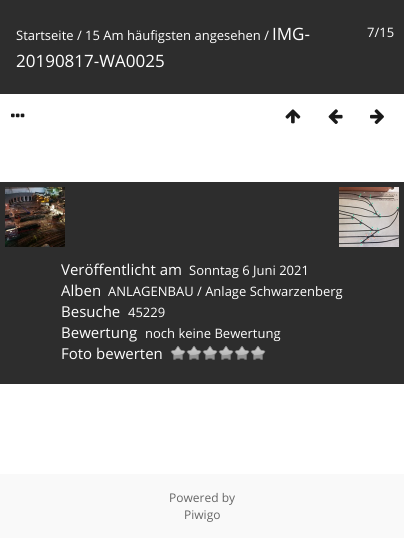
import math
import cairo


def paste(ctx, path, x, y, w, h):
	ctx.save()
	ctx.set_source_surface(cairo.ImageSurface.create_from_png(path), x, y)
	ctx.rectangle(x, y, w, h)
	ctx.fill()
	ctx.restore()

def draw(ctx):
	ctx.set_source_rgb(1, 1, 1)
	ctx.paint()
	ctx.set_source_rgb(0.176, 0.176, 0.176)
	ctx.rectangle(0, 0, 404, 94)
	ctx.fill()
	ctx.select_font_face('Open Sans')
	ctx.set_font_size(13)
	ctx.set_source_rgb(1, 1, 1)
	ctx.move_to(16, 40)
	ctx.show_text('Startseite / 15 Am häufigsten angesehen /')
	ctx.set_font_size(17)
	ctx.move_to(272, 40)
	ctx.show_text('IMG-')
	ctx.move_to(16, 67)
	ctx.show_text('20190817-WA0025')
	ctx.set_font_size(13)
	ctx.move_to(367, 37)
	ctx.show_text('7/15')
	paste(ctx, 'media/1.png', 11, 113, 14, 5)
	paste(ctx, 'media/2.png', 285, 109, 16, 15)
	paste(ctx, 'media/3.png', 328, 109, 15, 15)
	paste(ctx, 'media/4.png', 370, 109, 14, 15)
	ctx.set_source_rgb(0.176, 0.176, 0.176)
	ctx.rectangle(0, 182, 404, 202)
	ctx.fill()
	paste(ctx, 'media/5.png', 5, 187, 60, 60)
	paste(ctx, 'media/6.png', 339, 187, 60, 60)
	ctx.set_font_size(15)
	ctx.set_source_rgb(1, 1, 1)
	ctx.move_to(61, 275)
	ctx.show_text('Veröffentlicht am')
	ctx.set_font_size(13)
	ctx.move_to(189, 275)
	ctx.show_text('Sonntag 6 Juni 2021')
	ctx.set_font_size(15)
	ctx.move_to(61, 296)
	ctx.show_text('Alben')
	ctx.set_font_size(13)
	ctx.move_to(108, 296)
	ctx.show_text('ANLAGENBAU / Anlage Schwarzenberg')
	ctx.set_font_size(15)
	ctx.move_to(61, 317)
	ctx.show_text('Besuche')
	ctx.set_font_size(13)
	ctx.move_to(128, 317)
	ctx.show_text('45229')
	ctx.set_font_size(15)
	ctx.move_to(61, 338)
	ctx.show_text('Bewertung')
	ctx.set_font_size(13)
	ctx.move_to(145, 338)
	ctx.show_text('noch keine Bewertung')
	ctx.set_font_size(15)
	ctx.move_to(61, 359)
	ctx.show_text('Foto bewerten')
	paste(ctx, 'media/7.png', 170, 346, 16, 14)
	paste(ctx, 'media/7.png', 186, 346, 16, 14)
	paste(ctx, 'media/7.png', 202, 346, 16, 14)
	paste(ctx, 'media/7.png', 218, 346, 16, 14)
	paste(ctx, 'media/7.png', 234, 346, 16, 14)
	paste(ctx, 'media/7.png', 250, 346, 16, 14)
	ctx.set_source_rgb(0.976, 0.976, 0.976)
	ctx.rectangle(0, 474, 404, 64)
	ctx.fill()
	ctx.set_font_size(12)
	ctx.set_source_rgb(0.4, 0.4, 0.4)
	ctx.move_to(169, 502)
	ctx.show_text('Powered by')
	ctx.move_to(184, 519)
	ctx.show_text('Piwigo')


surface = cairo.ImageSurface(cairo.FORMAT_RGB24, 404, 538)
ctx = cairo.Context(surface)
options = cairo.FontOptions()
options.set_hint_metrics(cairo.HINT_METRICS_OFF)
options.set_hint_style(cairo.HINT_STYLE_NONE)
ctx.set_font_options(options)
ctx.set_miter_limit(4)
draw(ctx)
surface.write_to_png('image.png')
